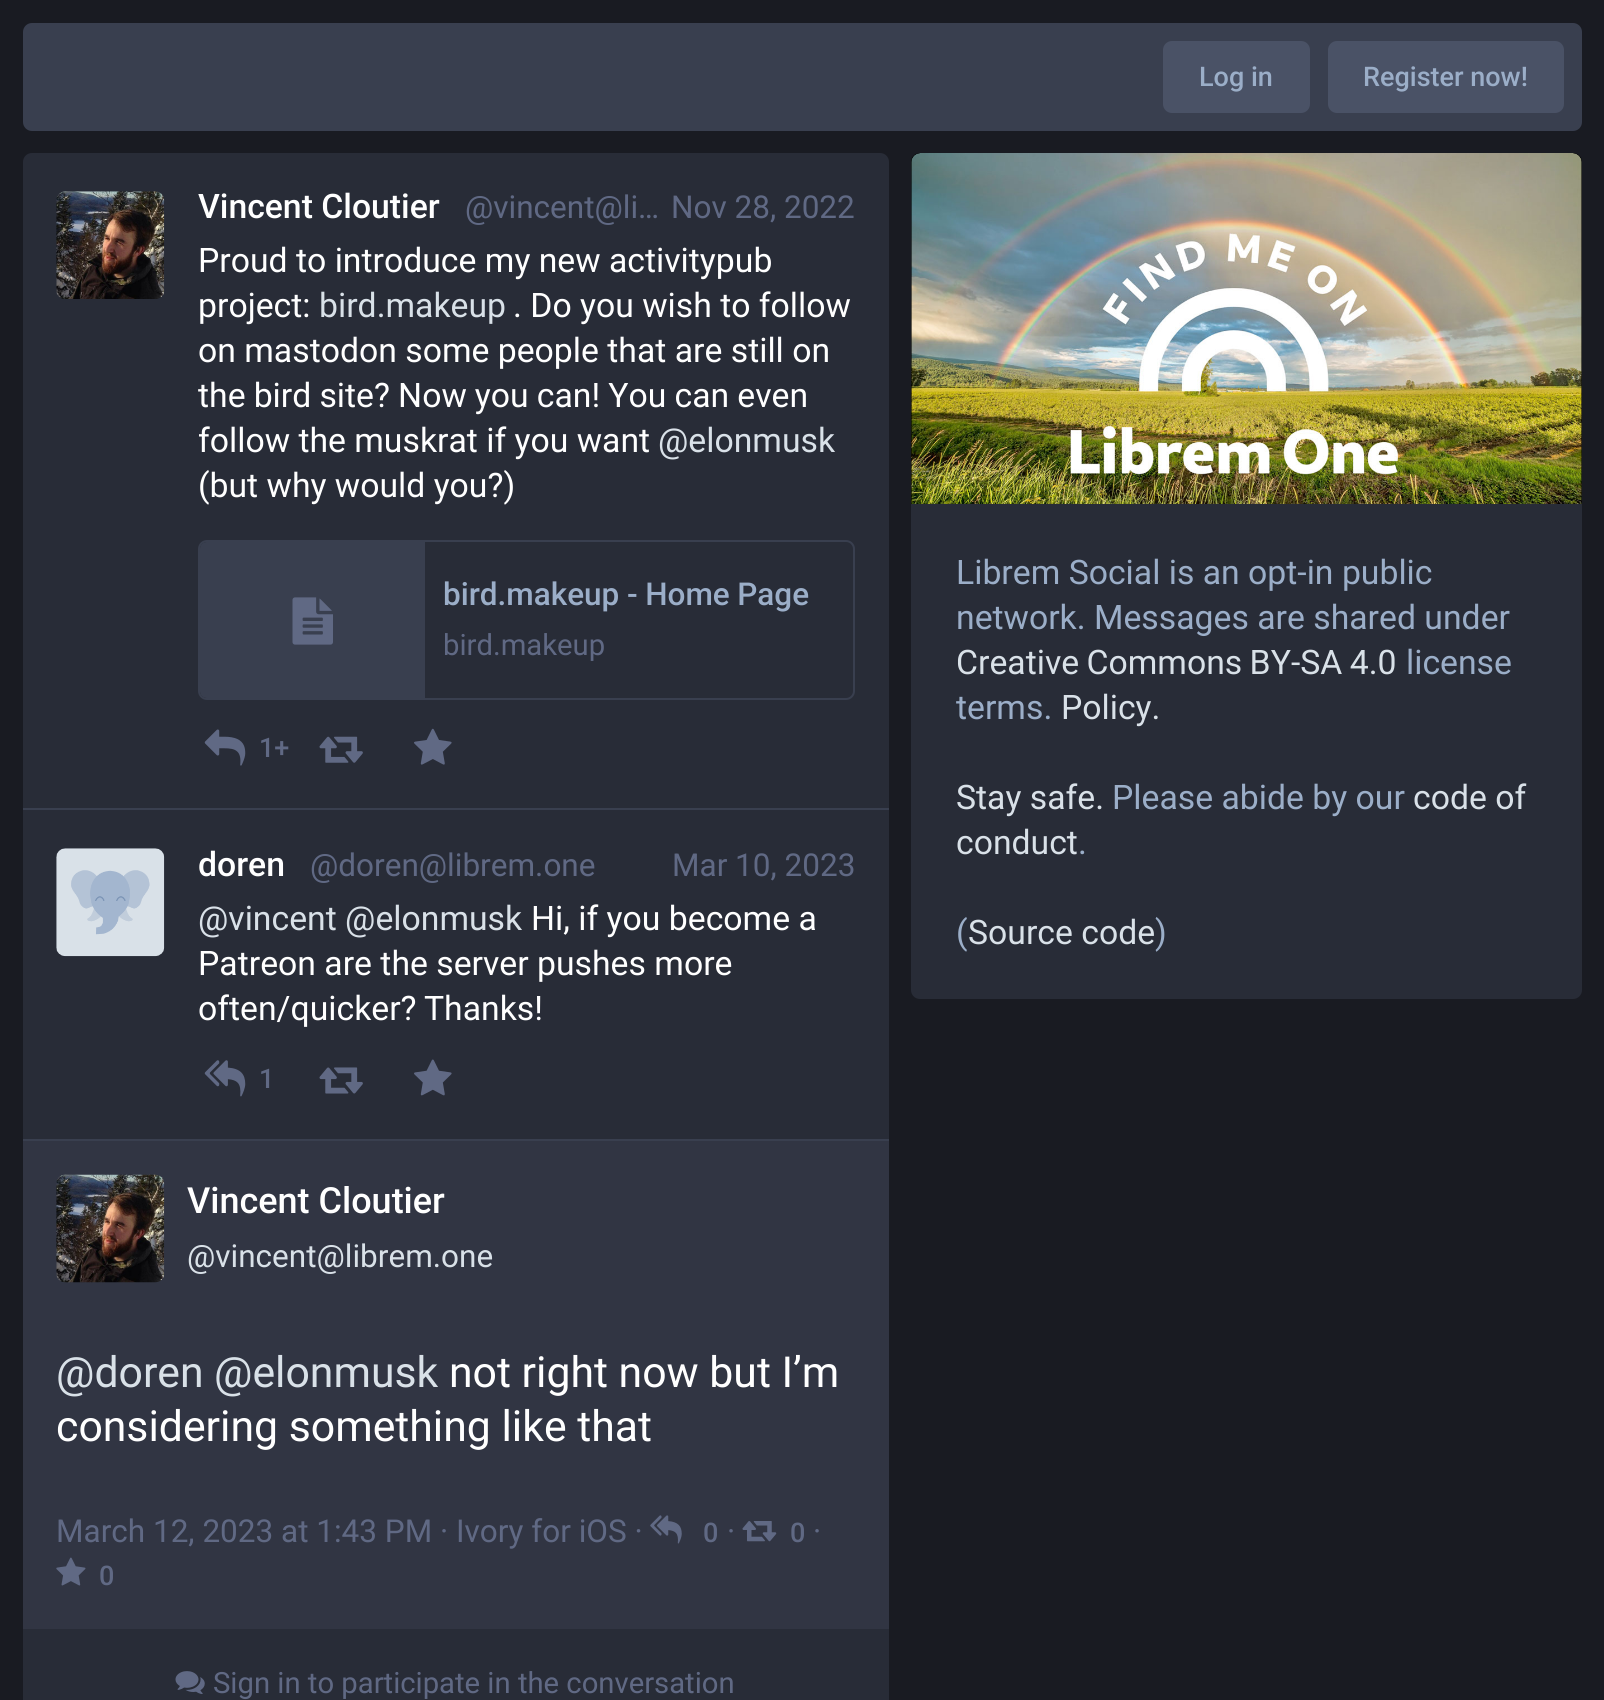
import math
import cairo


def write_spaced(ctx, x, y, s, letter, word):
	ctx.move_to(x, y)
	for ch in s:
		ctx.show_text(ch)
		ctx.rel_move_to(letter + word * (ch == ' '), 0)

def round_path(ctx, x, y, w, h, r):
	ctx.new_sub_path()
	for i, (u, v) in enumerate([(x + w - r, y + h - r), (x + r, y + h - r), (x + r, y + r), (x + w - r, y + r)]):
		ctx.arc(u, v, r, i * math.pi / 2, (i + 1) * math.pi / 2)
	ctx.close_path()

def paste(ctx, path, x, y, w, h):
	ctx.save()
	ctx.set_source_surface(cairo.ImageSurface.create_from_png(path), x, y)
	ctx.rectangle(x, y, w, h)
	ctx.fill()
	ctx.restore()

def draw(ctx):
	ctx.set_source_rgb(0.098, 0.106, 0.133)
	ctx.paint()
	ctx.set_source_rgb(0.224, 0.247, 0.31)
	round_path(ctx, 23, 23, 1559, 108, 9)
	ctx.fill()
	ctx.set_source_rgb(0.29, 0.322, 0.4)
	round_path(ctx, 1163, 41, 147, 72, 9)
	ctx.fill()
	ctx.select_font_face('Roboto Medium')
	ctx.set_font_size(27)
	ctx.set_source_rgb(0.608, 0.682, 0.784)
	ctx.move_to(1199, 86)
	ctx.show_text('Log in')
	ctx.set_source_rgb(0.29, 0.322, 0.4)
	round_path(ctx, 1328, 41, 236, 72, 9)
	ctx.fill()
	ctx.set_source_rgb(0.608, 0.682, 0.784)
	ctx.move_to(1363, 86)
	ctx.show_text('Register now!')
	ctx.set_source_rgb(0.157, 0.173, 0.216)
	ctx.new_path()
	ctx.move_to(32, 153)
	ctx.line_to(880, 153)
	ctx.curve_to(885, 153, 889, 157, 889, 162)
	ctx.line_to(889, 810)
	ctx.line_to(23, 810)
	ctx.line_to(23, 162)
	ctx.curve_to(23, 157, 27, 153, 32, 153)
	ctx.close_path()
	ctx.fill()
	ctx.set_source_rgb(0.224, 0.247, 0.31)
	ctx.rectangle(23, 808, 866, 2)
	ctx.fill()
	paste(ctx, 'media/1.png', 56, 191, 109, 108)
	ctx.set_font_size(33.75)
	ctx.set_source_rgb(1, 1, 1)
	ctx.move_to(198, 218)
	ctx.show_text('Vincent Cloutier')
	ctx.select_font_face('Roboto')
	ctx.set_font_size(31.5)
	ctx.set_source_rgb(0.376, 0.412, 0.518)
	ctx.move_to(465, 218)
	ctx.show_text('@vincent@li…')
	ctx.move_to(671, 218)
	ctx.show_text('Nov 28, 2022')
	ctx.set_font_size(33.75)
	ctx.set_source_rgb(1, 1, 1)
	ctx.move_to(198, 272)
	ctx.show_text('Proud to introduce my new activitypub')
	ctx.move_to(198, 317)
	ctx.show_text('project:')
	ctx.set_source_rgb(0.851, 0.882, 0.91)
	ctx.move_to(319, 317)
	ctx.show_text('bird.makeup')
	ctx.set_source_rgb(1, 1, 1)
	ctx.move_to(513, 317)
	ctx.show_text('. Do you wish to follow')
	ctx.move_to(198, 362)
	ctx.show_text('on mastodon some people that are still on')
	write_spaced(ctx, 198, 407, 'the bird site? Now you can! You can even', 0, -0.25)
	ctx.move_to(198, 452)
	ctx.show_text('follow the muskrat if you want')
	ctx.set_source_rgb(0.851, 0.882, 0.91)
	ctx.move_to(658, 452)
	ctx.show_text('@elonmusk')
	ctx.set_source_rgb(1, 1, 1)
	ctx.move_to(198, 497)
	ctx.show_text('(but why would you?)')
	round_path(ctx, 199, 541, 655, 158, 8)
	ctx.set_source_rgb(0.224, 0.247, 0.31)
	ctx.stroke()
	ctx.new_path()
	ctx.move_to(207, 542)
	ctx.line_to(425, 542)
	ctx.line_to(425, 698)
	ctx.line_to(207, 698)
	ctx.curve_to(203, 698, 200, 695, 200, 691)
	ctx.line_to(200, 549)
	ctx.curve_to(200, 545, 203, 542, 207, 542)
	ctx.close_path()
	ctx.fill()
	paste(ctx, 'media/2.png', 292, 597, 41, 48)
	ctx.select_font_face('Roboto Medium')
	ctx.set_font_size(31.5)
	ctx.set_source_rgb(0.608, 0.682, 0.784)
	write_spaced(ctx, 443, 605, 'bird.makeup - Home Page', 0, -0.25)
	ctx.select_font_face('Roboto')
	ctx.set_font_size(29.25)
	ctx.set_source_rgb(0.376, 0.412, 0.518)
	ctx.move_to(443, 655)
	ctx.show_text('bird.makeup')
	paste(ctx, 'media/3.png', 204, 729, 42, 37)
	ctx.select_font_face('Roboto Medium')
	ctx.set_font_size(27)
	ctx.move_to(259, 757)
	ctx.show_text('1+')
	paste(ctx, 'media/4.png', 319, 736, 44, 27)
	paste(ctx, 'media/5.png', 414, 728, 38, 37)
	ctx.set_source_rgb(0.157, 0.173, 0.216)
	ctx.rectangle(23, 810, 866, 329)
	ctx.fill()
	ctx.set_source_rgb(0.224, 0.247, 0.31)
	ctx.rectangle(23, 1139, 866, 2)
	ctx.fill()
	paste(ctx, 'media/6.png', 56, 848, 109, 109)
	ctx.set_font_size(33.75)
	ctx.set_source_rgb(1, 1, 1)
	ctx.move_to(198, 876)
	ctx.show_text('doren')
	ctx.select_font_face('Roboto')
	ctx.set_font_size(31.5)
	ctx.set_source_rgb(0.376, 0.412, 0.518)
	ctx.move_to(310, 876)
	ctx.show_text('@doren@librem.one')
	ctx.move_to(672, 876)
	ctx.show_text('Mar 10, 2023')
	ctx.set_font_size(33.75)
	ctx.set_source_rgb(0.851, 0.882, 0.91)
	ctx.move_to(198, 930)
	ctx.show_text('@vincent @elonmusk')
	ctx.set_source_rgb(1, 1, 1)
	ctx.move_to(531, 930)
	ctx.show_text('Hi, if you become a')
	ctx.move_to(198, 975)
	ctx.show_text('Patreon are the server pushes more')
	write_spaced(ctx, 198, 1020, 'often/quicker? Thanks!', 0, -1)
	paste(ctx, 'media/7.png', 204, 1060, 42, 37)
	ctx.select_font_face('Roboto Medium')
	ctx.set_font_size(27)
	ctx.set_source_rgb(0.376, 0.412, 0.518)
	ctx.move_to(259, 1088)
	ctx.show_text('1')
	paste(ctx, 'media/8.png', 319, 1067, 44, 27)
	paste(ctx, 'media/9.png', 414, 1059, 38, 37)
	ctx.set_source_rgb(0.192, 0.208, 0.263)
	ctx.rectangle(23, 1141, 866, 488)
	ctx.fill()
	paste(ctx, 'media/10.png', 56, 1174, 109, 109)
	ctx.set_font_size(36)
	ctx.set_source_rgb(1, 1, 1)
	ctx.move_to(187, 1213)
	ctx.show_text('Vincent Cloutier')
	ctx.select_font_face('Roboto')
	ctx.set_font_size(31.5)
	ctx.set_source_rgb(0.851, 0.882, 0.91)
	ctx.move_to(187, 1267)
	ctx.show_text('@vincent@librem.one')
	ctx.set_font_size(42.75)
	ctx.move_to(56, 1387)
	ctx.show_text('@doren')
	ctx.move_to(214, 1387)
	ctx.show_text('@elonmusk')
	ctx.set_source_rgb(1, 1, 1)
	ctx.move_to(449, 1387)
	ctx.show_text('not right now but I’m')
	ctx.move_to(56, 1441)
	ctx.show_text('considering something like that')
	ctx.set_font_size(31.5)
	ctx.set_source_rgb(0.376, 0.412, 0.518)
	ctx.move_to(56, 1542)
	ctx.show_text('March 12, 2023 at 1:43 PM · Ivory for iOS ·')
	paste(ctx, 'media/11.png', 650, 1515, 32, 29)
	ctx.select_font_face('Roboto Medium')
	ctx.set_font_size(27)
	ctx.move_to(703, 1542)
	ctx.show_text('0')
	ctx.select_font_face('Roboto')
	ctx.set_font_size(31.5)
	ctx.move_to(727, 1542)
	ctx.show_text('·')
	paste(ctx, 'media/12.png', 742, 1521, 35, 21)
	ctx.select_font_face('Roboto Medium')
	ctx.set_font_size(27)
	ctx.move_to(790, 1542)
	ctx.show_text('0')
	ctx.select_font_face('Roboto')
	ctx.set_font_size(31.5)
	ctx.move_to(813, 1542)
	ctx.show_text('·')
	paste(ctx, 'media/13.png', 56, 1557, 30, 29)
	ctx.select_font_face('Roboto Medium')
	ctx.set_font_size(27)
	ctx.move_to(99, 1585)
	ctx.show_text('0')
	ctx.set_source_rgb(0.157, 0.173, 0.216)
	ctx.rectangle(23, 1629, 866, 71)
	ctx.fill()
	paste(ctx, 'media/14.png', 175, 1671, 30, 23)
	ctx.select_font_face('Roboto')
	ctx.set_font_size(29.25)
	ctx.set_source_rgb(0.376, 0.412, 0.518)
	ctx.move_to(213, 1693)
	ctx.show_text('Sign in to participate in the conversation')
	ctx.set_source_rgb(0, 0, 0)
	ctx.new_path()
	ctx.move_to(920, 153)
	ctx.line_to(1573, 153)
	ctx.curve_to(1578, 153, 1582, 157, 1582, 162)
	ctx.line_to(1582, 504)
	ctx.line_to(911, 504)
	ctx.line_to(911, 162)
	ctx.curve_to(911, 157, 915, 153, 920, 153)
	ctx.close_path()
	ctx.fill()
	paste(ctx, 'media/15.png', 911, 153, 671, 351)
	ctx.set_source_rgb(0.157, 0.173, 0.216)
	ctx.new_path()
	ctx.move_to(911, 504)
	ctx.line_to(1582, 504)
	ctx.line_to(1582, 990)
	ctx.curve_to(1582, 995, 1578, 999, 1573, 999)
	ctx.line_to(920, 999)
	ctx.curve_to(915, 999, 911, 995, 911, 990)
	ctx.close_path()
	ctx.fill()
	ctx.set_font_size(33.75)
	ctx.set_source_rgb(0.608, 0.682, 0.784)
	ctx.move_to(956, 584)
	ctx.show_text('Librem Social is an opt-in public')
	ctx.move_to(956, 629)
	ctx.show_text('network. Messages are shared under')
	ctx.set_source_rgb(0.851, 0.882, 0.91)
	write_spaced(ctx, 956, 674, 'Creative Commons BY-SA 4.0', 0, -1)
	ctx.set_source_rgb(0.608, 0.682, 0.784)
	ctx.move_to(1406, 674)
	ctx.show_text('license')
	ctx.move_to(956, 719)
	ctx.show_text('terms.')
	ctx.set_source_rgb(0.851, 0.882, 0.91)
	ctx.move_to(1061, 719)
	ctx.show_text('Policy.')
	ctx.move_to(956, 809)
	ctx.show_text('Stay safe.')
	ctx.set_source_rgb(0.608, 0.682, 0.784)
	ctx.move_to(1112, 809)
	ctx.show_text('Please abide by our')
	ctx.set_source_rgb(0.851, 0.882, 0.91)
	ctx.move_to(1413, 809)
	ctx.show_text('code of')
	ctx.move_to(956, 854)
	ctx.show_text('conduct')
	ctx.set_source_rgb(0.608, 0.682, 0.784)
	ctx.move_to(1078, 854)
	ctx.show_text('.')
	ctx.move_to(956, 944)
	ctx.show_text('(')
	ctx.set_source_rgb(0.851, 0.882, 0.91)
	ctx.move_to(968, 944)
	ctx.show_text('Source code')
	ctx.set_source_rgb(0.608, 0.682, 0.784)
	ctx.move_to(1155, 944)
	ctx.show_text(')')


surface = cairo.ImageSurface(cairo.FORMAT_RGB24, 1604, 1700)
ctx = cairo.Context(surface)
options = cairo.FontOptions()
options.set_hint_metrics(cairo.HINT_METRICS_OFF)
options.set_hint_style(cairo.HINT_STYLE_NONE)
ctx.set_font_options(options)
ctx.set_miter_limit(4)
draw(ctx)
surface.write_to_png('image.png')
